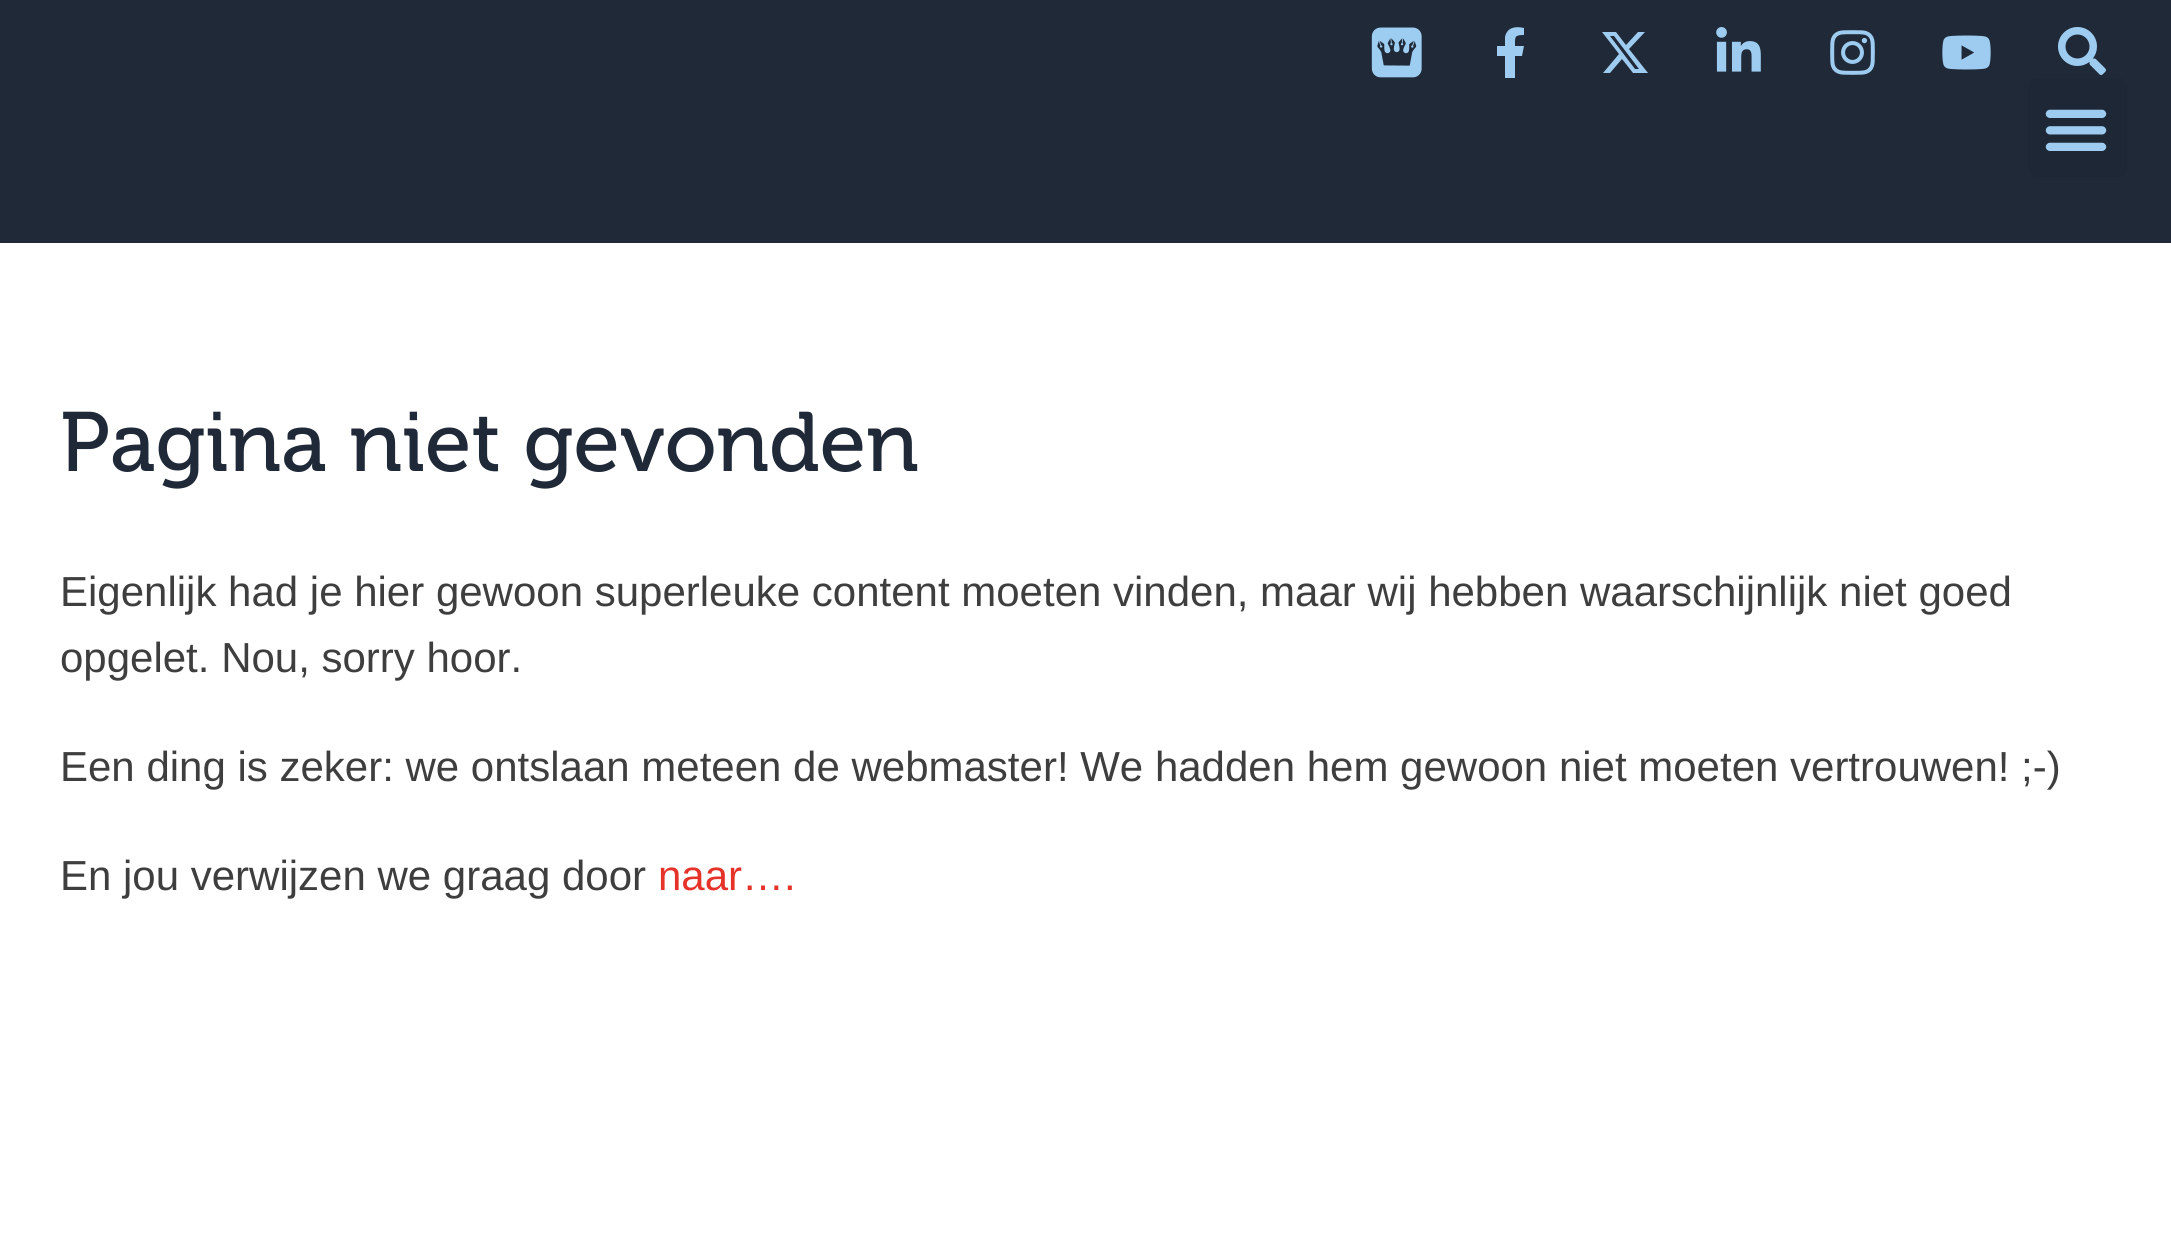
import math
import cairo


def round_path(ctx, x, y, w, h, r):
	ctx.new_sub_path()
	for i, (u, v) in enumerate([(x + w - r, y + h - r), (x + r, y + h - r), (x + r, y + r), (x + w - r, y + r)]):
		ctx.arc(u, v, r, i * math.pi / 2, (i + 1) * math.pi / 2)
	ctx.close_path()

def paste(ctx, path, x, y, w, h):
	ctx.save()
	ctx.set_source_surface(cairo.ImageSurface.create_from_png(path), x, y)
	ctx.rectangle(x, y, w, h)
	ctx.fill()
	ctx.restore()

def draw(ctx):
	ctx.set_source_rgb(1, 1, 1)
	ctx.paint()
	ctx.set_source_rgb(0.122, 0.161, 0.22)
	ctx.rectangle(0, 0, 2171, 243)
	ctx.fill()
	paste(ctx, 'media/1.png', 1371, 27, 51, 51)
	ctx.set_source_rgb(0.62, 0.8, 0.941)
	ctx.new_path()
	ctx.move_to(1522, 56)
	ctx.line_to(1524, 46)
	ctx.line_to(1515, 46)
	ctx.curve_to(1515, 37, 1514, 35, 1524, 35)
	ctx.line_to(1524, 28)
	ctx.curve_to(1516, 26, 1507, 27, 1505, 37)
	ctx.line_to(1505, 46)
	ctx.line_to(1497, 46)
	ctx.line_to(1497, 56)
	ctx.line_to(1505, 56)
	ctx.line_to(1505, 78)
	ctx.line_to(1515, 78)
	ctx.line_to(1515, 56)
	ctx.close_path()
	ctx.fill()
	ctx.new_path()
	ctx.move_to(1638, 32)
	ctx.line_to(1645, 32)
	ctx.line_to(1629, 49)
	ctx.line_to(1648, 73)
	ctx.line_to(1633, 73)
	ctx.line_to(1622, 59)
	ctx.line_to(1610, 73)
	ctx.line_to(1603, 73)
	ctx.line_to(1619, 54)
	ctx.line_to(1602, 32)
	ctx.line_to(1616, 32)
	ctx.line_to(1626, 45)
	ctx.close_path()
	ctx.move_to(1635, 69)
	ctx.line_to(1639, 69)
	ctx.line_to(1614, 36)
	ctx.line_to(1610, 36)
	ctx.close_path()
	ctx.fill()
	paste(ctx, 'media/2.png', 1716, 27, 45, 45)
	paste(ctx, 'media/3.png', 1830, 30, 45, 45)
	paste(ctx, 'media/4.png', 1942, 35, 49, 35)
	paste(ctx, 'media/5.png', 2058, 27, 48, 48)
	ctx.set_source_rgb(0.114, 0.153, 0.208)
	round_path(ctx, 2028, 78, 99, 99, 9)
	ctx.fill()
	paste(ctx, 'media/6.png', 2045, 109, 62, 42)
	ctx.select_font_face('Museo')
	ctx.set_font_size(84)
	ctx.set_source_rgb(0.122, 0.161, 0.22)
	ctx.move_to(60, 471)
	ctx.show_text('Pagina niet gevonden')
	ctx.select_font_face('Liberation Sans')
	ctx.set_font_size(42)
	ctx.set_source_rgb(0.243, 0.243, 0.247)
	for x, y, s in [
		(60, 606, 'Eigenlijk had je hier gewoon superleuke content moeten vinden, maar wij hebben waarschijnlijk niet goed'),
		(60, 672, 'opgelet. Nou, sorry hoor.'),
		(60, 781, 'Een ding is zeker: we ontslaan meteen de webmaster! We hadden hem gewoon niet moeten vertrouwen! ;-)'),
		(60, 890, 'En jou verwijzen we graag door'),
	]:
		ctx.move_to(x, y)
		ctx.show_text(s)
	ctx.set_source_rgb(0.898, 0.2, 0.161)
	ctx.move_to(658, 890)
	ctx.show_text('naar….')


surface = cairo.ImageSurface(cairo.FORMAT_RGB24, 2171, 1252)
ctx = cairo.Context(surface)
options = cairo.FontOptions()
options.set_hint_metrics(cairo.HINT_METRICS_OFF)
options.set_hint_style(cairo.HINT_STYLE_NONE)
ctx.set_font_options(options)
ctx.set_miter_limit(4)
draw(ctx)
surface.write_to_png('image.png')
